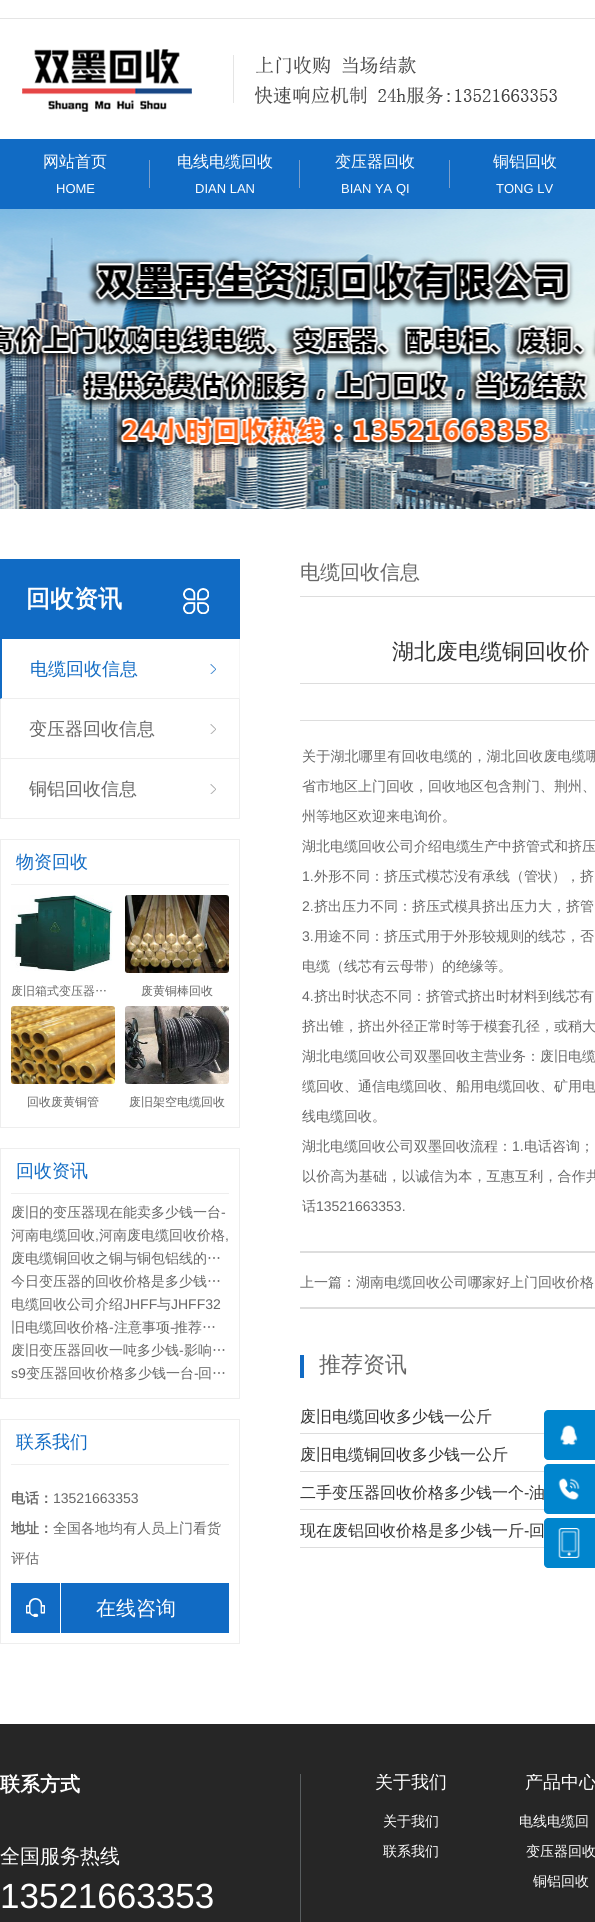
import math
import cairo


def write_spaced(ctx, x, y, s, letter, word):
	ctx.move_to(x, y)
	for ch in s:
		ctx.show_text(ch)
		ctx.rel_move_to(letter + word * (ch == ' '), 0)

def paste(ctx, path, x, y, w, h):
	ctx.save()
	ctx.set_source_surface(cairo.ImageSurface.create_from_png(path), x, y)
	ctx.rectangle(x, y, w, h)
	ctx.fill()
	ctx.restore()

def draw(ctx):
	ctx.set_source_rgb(1, 1, 1)
	ctx.paint()
	ctx.set_source_rgb(0.898, 0.898, 0.898)
	ctx.rectangle(0, 18, 595, 1)
	ctx.fill()
	paste(ctx, 'media/1.png', 22, 49, 535, 63)
	ctx.set_source_rgb(0.067, 0.42, 0.769)
	ctx.rectangle(0, 139, 595, 70)
	ctx.fill()
	ctx.select_font_face('WenQuanYi Zen Hei Medium')
	ctx.set_font_size(16)
	ctx.set_source_rgb(1, 1, 1)
	ctx.move_to(43, 167)
	ctx.show_text('网站首页')
	ctx.set_source_rgb(0.49, 0.624, 0.792)
	ctx.rectangle(149, 160, 1, 28)
	ctx.fill()
	ctx.select_font_face('Liberation Sans')
	ctx.set_font_size(13)
	ctx.set_source_rgb(1, 1, 1)
	ctx.move_to(56, 193)
	ctx.show_text('HOME')
	ctx.select_font_face('WenQuanYi Zen Hei Medium')
	ctx.set_font_size(16)
	ctx.move_to(177, 167)
	ctx.show_text('电线电缆回收')
	ctx.set_source_rgb(0.49, 0.624, 0.792)
	ctx.rectangle(299, 160, 1, 28)
	ctx.fill()
	ctx.select_font_face('Liberation Sans')
	ctx.set_font_size(13)
	ctx.set_source_rgb(1, 1, 1)
	ctx.move_to(195, 193)
	ctx.show_text('DIAN LAN')
	ctx.select_font_face('WenQuanYi Zen Hei Medium')
	ctx.set_font_size(16)
	ctx.move_to(335, 167)
	ctx.show_text('变压器回收')
	ctx.set_source_rgb(0.49, 0.624, 0.792)
	ctx.rectangle(449, 160, 1, 28)
	ctx.fill()
	ctx.select_font_face('Liberation Sans')
	ctx.set_font_size(13)
	ctx.set_source_rgb(1, 1, 1)
	ctx.move_to(341, 193)
	ctx.show_text('BIAN YA QI')
	ctx.select_font_face('WenQuanYi Zen Hei Medium')
	ctx.set_font_size(16)
	ctx.move_to(493, 167)
	ctx.show_text('铜铝回收')
	ctx.select_font_face('Liberation Sans')
	ctx.set_font_size(13)
	ctx.move_to(496, 193)
	ctx.show_text('TONG LV')
	paste(ctx, 'media/2.png', 0, 209, 595, 300)
	ctx.set_source_rgb(0.067, 0.42, 0.769)
	ctx.rectangle(0, 559, 240, 80)
	ctx.fill()
	ctx.select_font_face('WenQuanYi Zen Hei', cairo.FONT_SLANT_NORMAL, cairo.FONT_WEIGHT_BOLD)
	ctx.set_font_size(24)
	ctx.set_source_rgb(1, 1, 1)
	ctx.move_to(26, 607)
	ctx.show_text('回收资讯')
	paste(ctx, 'media/3.png', 183, 588, 26, 26)
	paste(ctx, 'media/4.png', 210, 664, 6, 10)
	ctx.set_source_rgb(0.961, 0.961, 0.961)
	ctx.rectangle(239, 639, 1, 60)
	ctx.fill()
	ctx.set_source_rgb(0.933, 0.933, 0.933)
	ctx.new_path()
	ctx.move_to(240, 699)
	ctx.line_to(0, 699)
	ctx.line_to(2, 698)
	ctx.line_to(239, 698)
	ctx.close_path()
	ctx.fill()
	ctx.set_source_rgb(0.067, 0.42, 0.769)
	ctx.new_path()
	ctx.move_to(0, 699)
	ctx.line_to(0, 639)
	ctx.line_to(2, 639)
	ctx.line_to(2, 698)
	ctx.close_path()
	ctx.fill()
	ctx.select_font_face('WenQuanYi Zen Hei Medium')
	ctx.set_font_size(18)
	ctx.move_to(30, 675)
	ctx.show_text('电缆回收信息')
	paste(ctx, 'media/5.png', 210, 724, 6, 10)
	ctx.set_source_rgb(0.933, 0.933, 0.933)
	ctx.rectangle(239, 699, 1, 120)
	ctx.rectangle(0, 758, 240, 1)
	ctx.rectangle(0, 699, 1, 60)
	ctx.fill()
	ctx.set_source_rgb(0.4, 0.4, 0.4)
	ctx.move_to(29, 735)
	ctx.show_text('变压器回收信息')
	paste(ctx, 'media/5.png', 210, 784, 6, 10)
	ctx.set_source_rgb(0.933, 0.933, 0.933)
	ctx.rectangle(0, 818, 240, 1)
	ctx.fill()
	ctx.rectangle(0, 759, 1, 60)
	ctx.fill()
	ctx.set_source_rgb(0.4, 0.4, 0.4)
	ctx.move_to(29, 795)
	ctx.show_text('铜铝回收信息')
	ctx.rectangle(0.5, 839.5, 239, 288)
	ctx.set_source_rgb(0.933, 0.933, 0.933)
	ctx.set_line_width(1)
	ctx.stroke()
	ctx.rectangle(11, 884, 218, 1)
	ctx.fill()
	ctx.set_source_rgb(0.067, 0.42, 0.769)
	ctx.move_to(16, 868)
	ctx.show_text('物资回收')
	paste(ctx, 'media/6.png', 11, 895, 102, 77)
	ctx.set_font_size(12)
	ctx.set_source_rgb(0.4, 0.4, 0.4)
	ctx.move_to(11, 995)
	ctx.show_text('废旧箱式变压器…')
	paste(ctx, 'media/7.png', 125, 895, 104, 78)
	ctx.move_to(141, 995)
	ctx.show_text('废黄铜棒回收')
	paste(ctx, 'media/8.png', 11, 1006, 104, 78)
	ctx.move_to(27, 1106)
	ctx.show_text('回收废黄铜管')
	paste(ctx, 'media/9.png', 125, 1006, 104, 78)
	ctx.move_to(129, 1106)
	ctx.show_text('废旧架空电缆回收')
	ctx.rectangle(0.5, 1148.5, 239, 250)
	ctx.set_source_rgb(0.933, 0.933, 0.933)
	ctx.stroke()
	ctx.rectangle(11, 1193, 218, 1)
	ctx.fill()
	ctx.set_font_size(18)
	ctx.set_source_rgb(0.067, 0.42, 0.769)
	ctx.move_to(16, 1177)
	ctx.show_text('回收资讯')
	ctx.set_font_size(14)
	ctx.set_source_rgb(0.4, 0.4, 0.4)
	ctx.move_to(11, 1217)
	ctx.show_text('废旧的变压器现在能卖多少钱一台')
	ctx.select_font_face('Liberation Sans')
	ctx.move_to(221, 1217)
	ctx.show_text('-')
	ctx.select_font_face('WenQuanYi Zen Hei Medium')
	ctx.move_to(11, 1240)
	ctx.show_text('河南电缆回收')
	ctx.select_font_face('Liberation Sans')
	ctx.move_to(95, 1240)
	ctx.show_text(',')
	ctx.select_font_face('WenQuanYi Zen Hei Medium')
	ctx.move_to(99, 1240)
	ctx.show_text('河南废电缆回收价格')
	ctx.select_font_face('Liberation Sans')
	ctx.move_to(225, 1240)
	ctx.show_text(',')
	ctx.select_font_face('WenQuanYi Zen Hei Medium')
	for x, y, s in [
		(11, 1263, '废电缆铜回收之铜与铜包铝线的…'),
		(11, 1286, '今日变压器的回收价格是多少钱…'),
		(11, 1309, '电缆回收公司介绍'),
	]:
		ctx.move_to(x, y)
		ctx.show_text(s)
	ctx.select_font_face('Liberation Sans')
	ctx.move_to(123, 1309)
	ctx.show_text('JHFF')
	ctx.select_font_face('WenQuanYi Zen Hei Medium')
	ctx.move_to(157, 1309)
	ctx.show_text('与')
	ctx.select_font_face('Liberation Sans')
	ctx.move_to(171, 1309)
	ctx.show_text('JHFF32')
	ctx.select_font_face('WenQuanYi Zen Hei Medium')
	ctx.move_to(11, 1332)
	ctx.show_text('旧电缆回收价格')
	ctx.select_font_face('Liberation Sans')
	ctx.move_to(109, 1332)
	ctx.show_text('-')
	ctx.select_font_face('WenQuanYi Zen Hei Medium')
	ctx.move_to(114, 1332)
	ctx.show_text('注意事项')
	ctx.select_font_face('Liberation Sans')
	ctx.move_to(170, 1332)
	ctx.show_text('-')
	ctx.select_font_face('WenQuanYi Zen Hei Medium')
	ctx.move_to(174, 1332)
	ctx.show_text('推荐…')
	ctx.move_to(11, 1355)
	ctx.show_text('废旧变压器回收一吨多少钱')
	ctx.select_font_face('Liberation Sans')
	ctx.move_to(179, 1355)
	ctx.show_text('-')
	ctx.select_font_face('WenQuanYi Zen Hei Medium')
	ctx.move_to(184, 1355)
	ctx.show_text('影响…')
	ctx.select_font_face('Liberation Sans')
	ctx.move_to(11, 1378)
	ctx.show_text('s9')
	ctx.select_font_face('WenQuanYi Zen Hei Medium')
	ctx.move_to(26, 1378)
	ctx.show_text('变压器回收价格多少钱一台')
	ctx.select_font_face('Liberation Sans')
	ctx.move_to(194, 1378)
	ctx.show_text('-')
	ctx.select_font_face('WenQuanYi Zen Hei Medium')
	ctx.move_to(198, 1378)
	ctx.show_text('回…')
	ctx.rectangle(0.5, 1419.5, 239, 224)
	ctx.set_source_rgb(0.933, 0.933, 0.933)
	ctx.stroke()
	ctx.rectangle(11, 1464, 218, 1)
	ctx.fill()
	ctx.set_font_size(18)
	ctx.set_source_rgb(0.067, 0.42, 0.769)
	ctx.move_to(16, 1448)
	ctx.show_text('联系我们')
	ctx.select_font_face('WenQuanYi Zen Hei', cairo.FONT_SLANT_NORMAL, cairo.FONT_WEIGHT_BOLD)
	ctx.set_font_size(14)
	ctx.set_source_rgb(0.4, 0.4, 0.4)
	ctx.move_to(11, 1503)
	ctx.show_text('电话：')
	ctx.select_font_face('Liberation Sans')
	ctx.move_to(53, 1503)
	ctx.show_text('13521663353')
	ctx.select_font_face('WenQuanYi Zen Hei', cairo.FONT_SLANT_NORMAL, cairo.FONT_WEIGHT_BOLD)
	ctx.move_to(11, 1533)
	ctx.show_text('地址：')
	ctx.select_font_face('WenQuanYi Zen Hei Medium')
	ctx.move_to(53, 1533)
	ctx.show_text('全国各地均有人员上门看货')
	ctx.move_to(11, 1563)
	ctx.show_text('评估')
	ctx.set_source_rgb(0.067, 0.42, 0.769)
	ctx.rectangle(11, 1583, 218, 50)
	ctx.fill()
	paste(ctx, 'media/10.png', 26, 1598, 19, 19)
	ctx.set_source_rgb(1, 1, 1)
	ctx.rectangle(60, 1583, 1, 50)
	ctx.fill()
	ctx.set_font_size(20)
	ctx.move_to(96, 1615)
	ctx.show_text('在线咨询')
	ctx.set_source_rgb(0.867, 0.867, 0.867)
	ctx.rectangle(300, 596, 295, 1)
	ctx.fill()
	ctx.set_source_rgb(0.4, 0.4, 0.4)
	ctx.move_to(300, 579)
	ctx.show_text('电缆回收信息')
	ctx.set_font_size(22)
	ctx.set_source_rgb(0.2, 0.2, 0.2)
	ctx.move_to(392, 659)
	ctx.show_text('湖北废电缆铜回收价')
	ctx.set_source_rgb(0.867, 0.867, 0.867)
	ctx.rectangle(300, 683, 295, 1)
	ctx.fill()
	ctx.rectangle(300, 720, 295, 1)
	ctx.fill()
	ctx.set_font_size(14)
	ctx.set_source_rgb(0.4, 0.4, 0.4)
	write_spaced(ctx, 302, 761, '关于湖北哪里有回收电缆的，湖北回收废电缆哪', 0.2, 0)
	for x, y, s in [
		(302, 791, '省市地区上门回收，回收地区包含荆门、荆州、'),
		(302, 821, '州等地区欢迎来电询价。'),
		(302, 851, '湖北电缆回收公司介绍电缆生产中挤管式和挤压'),
	]:
		ctx.move_to(x, y)
		ctx.show_text(s)
	ctx.select_font_face('Liberation Sans')
	ctx.move_to(302, 881)
	ctx.show_text('1.')
	ctx.select_font_face('WenQuanYi Zen Hei Medium')
	ctx.move_to(314, 881)
	ctx.show_text('外形不同：挤压式模芯没有承线（管状），挤')
	ctx.select_font_face('Liberation Sans')
	ctx.move_to(302, 911)
	ctx.show_text('2.')
	ctx.select_font_face('WenQuanYi Zen Hei Medium')
	ctx.move_to(314, 911)
	ctx.show_text('挤出压力不同：挤压式模具挤出压力大，挤管')
	ctx.select_font_face('Liberation Sans')
	ctx.move_to(302, 941)
	ctx.show_text('3.')
	ctx.select_font_face('WenQuanYi Zen Hei Medium')
	ctx.move_to(314, 941)
	ctx.show_text('用途不同：挤压式用于外形较规则的线芯，否')
	ctx.move_to(302, 971)
	ctx.show_text('电缆（线芯有云母带）的绝缘等。')
	ctx.select_font_face('Liberation Sans')
	ctx.move_to(302, 1001)
	ctx.show_text('4.')
	ctx.select_font_face('WenQuanYi Zen Hei Medium')
	for x, y, s in [
		(314, 1001, '挤出时状态不同：挤管式挤出时材料到线芯有'),
		(302, 1031, '挤出锥，挤出外径正常时等于模套孔径，或稍大'),
		(302, 1061, '湖北电缆回收公司双墨回收主营业务：废旧电缆'),
		(302, 1091, '缆回收、通信电缆回收、船用电缆回收、矿用电'),
		(302, 1121, '线电缆回收。'),
		(302, 1151, '湖北电缆回收公司双墨回收流程：'),
	]:
		ctx.move_to(x, y)
		ctx.show_text(s)
	ctx.select_font_face('Liberation Sans')
	ctx.move_to(512, 1151)
	ctx.show_text('1.')
	ctx.select_font_face('WenQuanYi Zen Hei Medium')
	ctx.move_to(524, 1151)
	ctx.show_text('电话咨询；')
	write_spaced(ctx, 302, 1181, '以价高为基础，以诚信为本，互惠互利，合作共', 0.2, 0)
	ctx.move_to(302, 1211)
	ctx.show_text('话')
	ctx.select_font_face('Liberation Sans')
	ctx.move_to(316, 1211)
	ctx.show_text('13521663353.')
	ctx.set_source_rgb(0.867, 0.867, 0.867)
	ctx.rectangle(300, 1251, 295, 2)
	ctx.fill()
	ctx.rectangle(300, 1307, 295, 2)
	ctx.fill()
	ctx.select_font_face('WenQuanYi Zen Hei Medium')
	ctx.set_source_rgb(0.4, 0.4, 0.4)
	ctx.move_to(300, 1287)
	ctx.show_text('上一篇：湖南电缆回收公司哪家好上门回收价格')
	ctx.set_source_rgb(0.067, 0.42, 0.769)
	ctx.rectangle(300, 1355, 4, 23)
	ctx.fill()
	ctx.set_font_size(22)
	ctx.set_source_rgb(0.4, 0.4, 0.4)
	ctx.move_to(319, 1372)
	ctx.show_text('推荐资讯')
	ctx.set_source_rgb(0.867, 0.867, 0.867)
	ctx.rectangle(300, 1433, 244, 1)
	ctx.fill()
	ctx.set_font_size(16)
	ctx.set_source_rgb(0.2, 0.2, 0.2)
	ctx.move_to(300, 1422)
	ctx.show_text('废旧电缆回收多少钱一公斤')
	ctx.set_source_rgb(0.867, 0.867, 0.867)
	ctx.rectangle(300, 1471, 244, 1)
	ctx.fill()
	ctx.set_source_rgb(0.2, 0.2, 0.2)
	ctx.move_to(300, 1460)
	ctx.show_text('废旧电缆铜回收多少钱一公斤')
	ctx.set_source_rgb(0.867, 0.867, 0.867)
	ctx.rectangle(300, 1509, 244, 1)
	ctx.fill()
	ctx.set_source_rgb(0.2, 0.2, 0.2)
	ctx.move_to(300, 1498)
	ctx.show_text('二手变压器回收价格多少钱一个')
	ctx.select_font_face('Liberation Sans')
	ctx.move_to(524, 1498)
	ctx.show_text('-')
	ctx.select_font_face('WenQuanYi Zen Hei Medium')
	ctx.move_to(529, 1498)
	ctx.show_text('油')
	ctx.set_source_rgb(0.867, 0.867, 0.867)
	ctx.rectangle(300, 1547, 244, 1)
	ctx.fill()
	ctx.set_source_rgb(0.2, 0.2, 0.2)
	ctx.move_to(300, 1536)
	ctx.show_text('现在废铝回收价格是多少钱一斤')
	ctx.select_font_face('Liberation Sans')
	ctx.move_to(524, 1536)
	ctx.show_text('-')
	ctx.select_font_face('WenQuanYi Zen Hei Medium')
	ctx.move_to(529, 1536)
	ctx.show_text('回')
	ctx.set_source_rgb(0, 0.522, 0.804)
	ctx.new_path()
	ctx.move_to(548, 1410)
	ctx.line_to(595, 1410)
	ctx.line_to(595, 1460)
	ctx.line_to(548, 1460)
	ctx.curve_to(546, 1460, 544, 1458, 544, 1456)
	ctx.line_to(544, 1414)
	ctx.curve_to(544, 1412, 546, 1410, 548, 1410)
	ctx.close_path()
	ctx.fill()
	paste(ctx, 'media/11.png', 560, 1425, 18, 21)
	ctx.new_path()
	ctx.move_to(548, 1464)
	ctx.line_to(595, 1464)
	ctx.line_to(595, 1514)
	ctx.line_to(548, 1514)
	ctx.curve_to(546, 1514, 544, 1512, 544, 1510)
	ctx.line_to(544, 1468)
	ctx.curve_to(544, 1466, 546, 1464, 548, 1464)
	ctx.close_path()
	ctx.fill()
	paste(ctx, 'media/12.png', 558, 1478, 22, 22)
	ctx.new_path()
	ctx.move_to(548, 1518)
	ctx.line_to(595, 1518)
	ctx.line_to(595, 1568)
	ctx.line_to(548, 1568)
	ctx.curve_to(546, 1568, 544, 1566, 544, 1564)
	ctx.line_to(544, 1522)
	ctx.curve_to(544, 1520, 546, 1518, 548, 1518)
	ctx.close_path()
	ctx.fill()
	paste(ctx, 'media/13.png', 558, 1528, 22, 30)
	ctx.set_source_rgb(0.149, 0.149, 0.149)
	ctx.rectangle(0, 1724, 595, 198)
	ctx.fill()
	ctx.select_font_face('WenQuanYi Zen Hei', cairo.FONT_SLANT_NORMAL, cairo.FONT_WEIGHT_BOLD)
	ctx.set_font_size(20)
	ctx.set_source_rgb(1, 1, 1)
	ctx.move_to(0, 1791)
	ctx.show_text('联系方式')
	ctx.select_font_face('WenQuanYi Zen Hei Medium')
	ctx.move_to(0, 1863)
	ctx.show_text('全国服务热线')
	ctx.select_font_face('Liberation Sans')
	ctx.set_font_size(35)
	ctx.move_to(0, 1908)
	ctx.show_text('13521663353')
	ctx.set_source_rgb(0.345, 0.365, 0.373)
	ctx.rectangle(300, 1774, 1, 148)
	ctx.fill()
	ctx.save()
	ctx.rectangle(336, 1774, 150, 100)
	ctx.clip()
	ctx.select_font_face('WenQuanYi Zen Hei Medium')
	ctx.set_font_size(18)
	ctx.set_source_rgb(1, 1, 1)
	ctx.move_to(375, 1788)
	ctx.show_text('关于我们')
	ctx.restore()
	ctx.select_font_face('WenQuanYi Zen Hei Medium')
	ctx.set_font_size(14)
	ctx.set_source_rgb(1, 1, 1)
	ctx.move_to(383, 1826)
	ctx.show_text('关于我们')
	ctx.move_to(383, 1856)
	ctx.show_text('联系我们')
	ctx.save()
	ctx.rectangle(486, 1774, 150, 130)
	ctx.clip()
	ctx.set_font_size(18)
	ctx.move_to(525, 1788)
	ctx.show_text('产品中心')
	ctx.restore()
	for x, y, s in [
		(519, 1826, '电线电缆回'),
		(526, 1856, '变压器回收'),
		(533, 1886, '铜铝回收'),
	]:
		ctx.move_to(x, y)
		ctx.show_text(s)


surface = cairo.ImageSurface(cairo.FORMAT_RGB24, 595, 1922)
ctx = cairo.Context(surface)
options = cairo.FontOptions()
options.set_hint_metrics(cairo.HINT_METRICS_OFF)
options.set_hint_style(cairo.HINT_STYLE_NONE)
ctx.set_font_options(options)
ctx.set_miter_limit(4)
draw(ctx)
surface.write_to_png('image.png')
